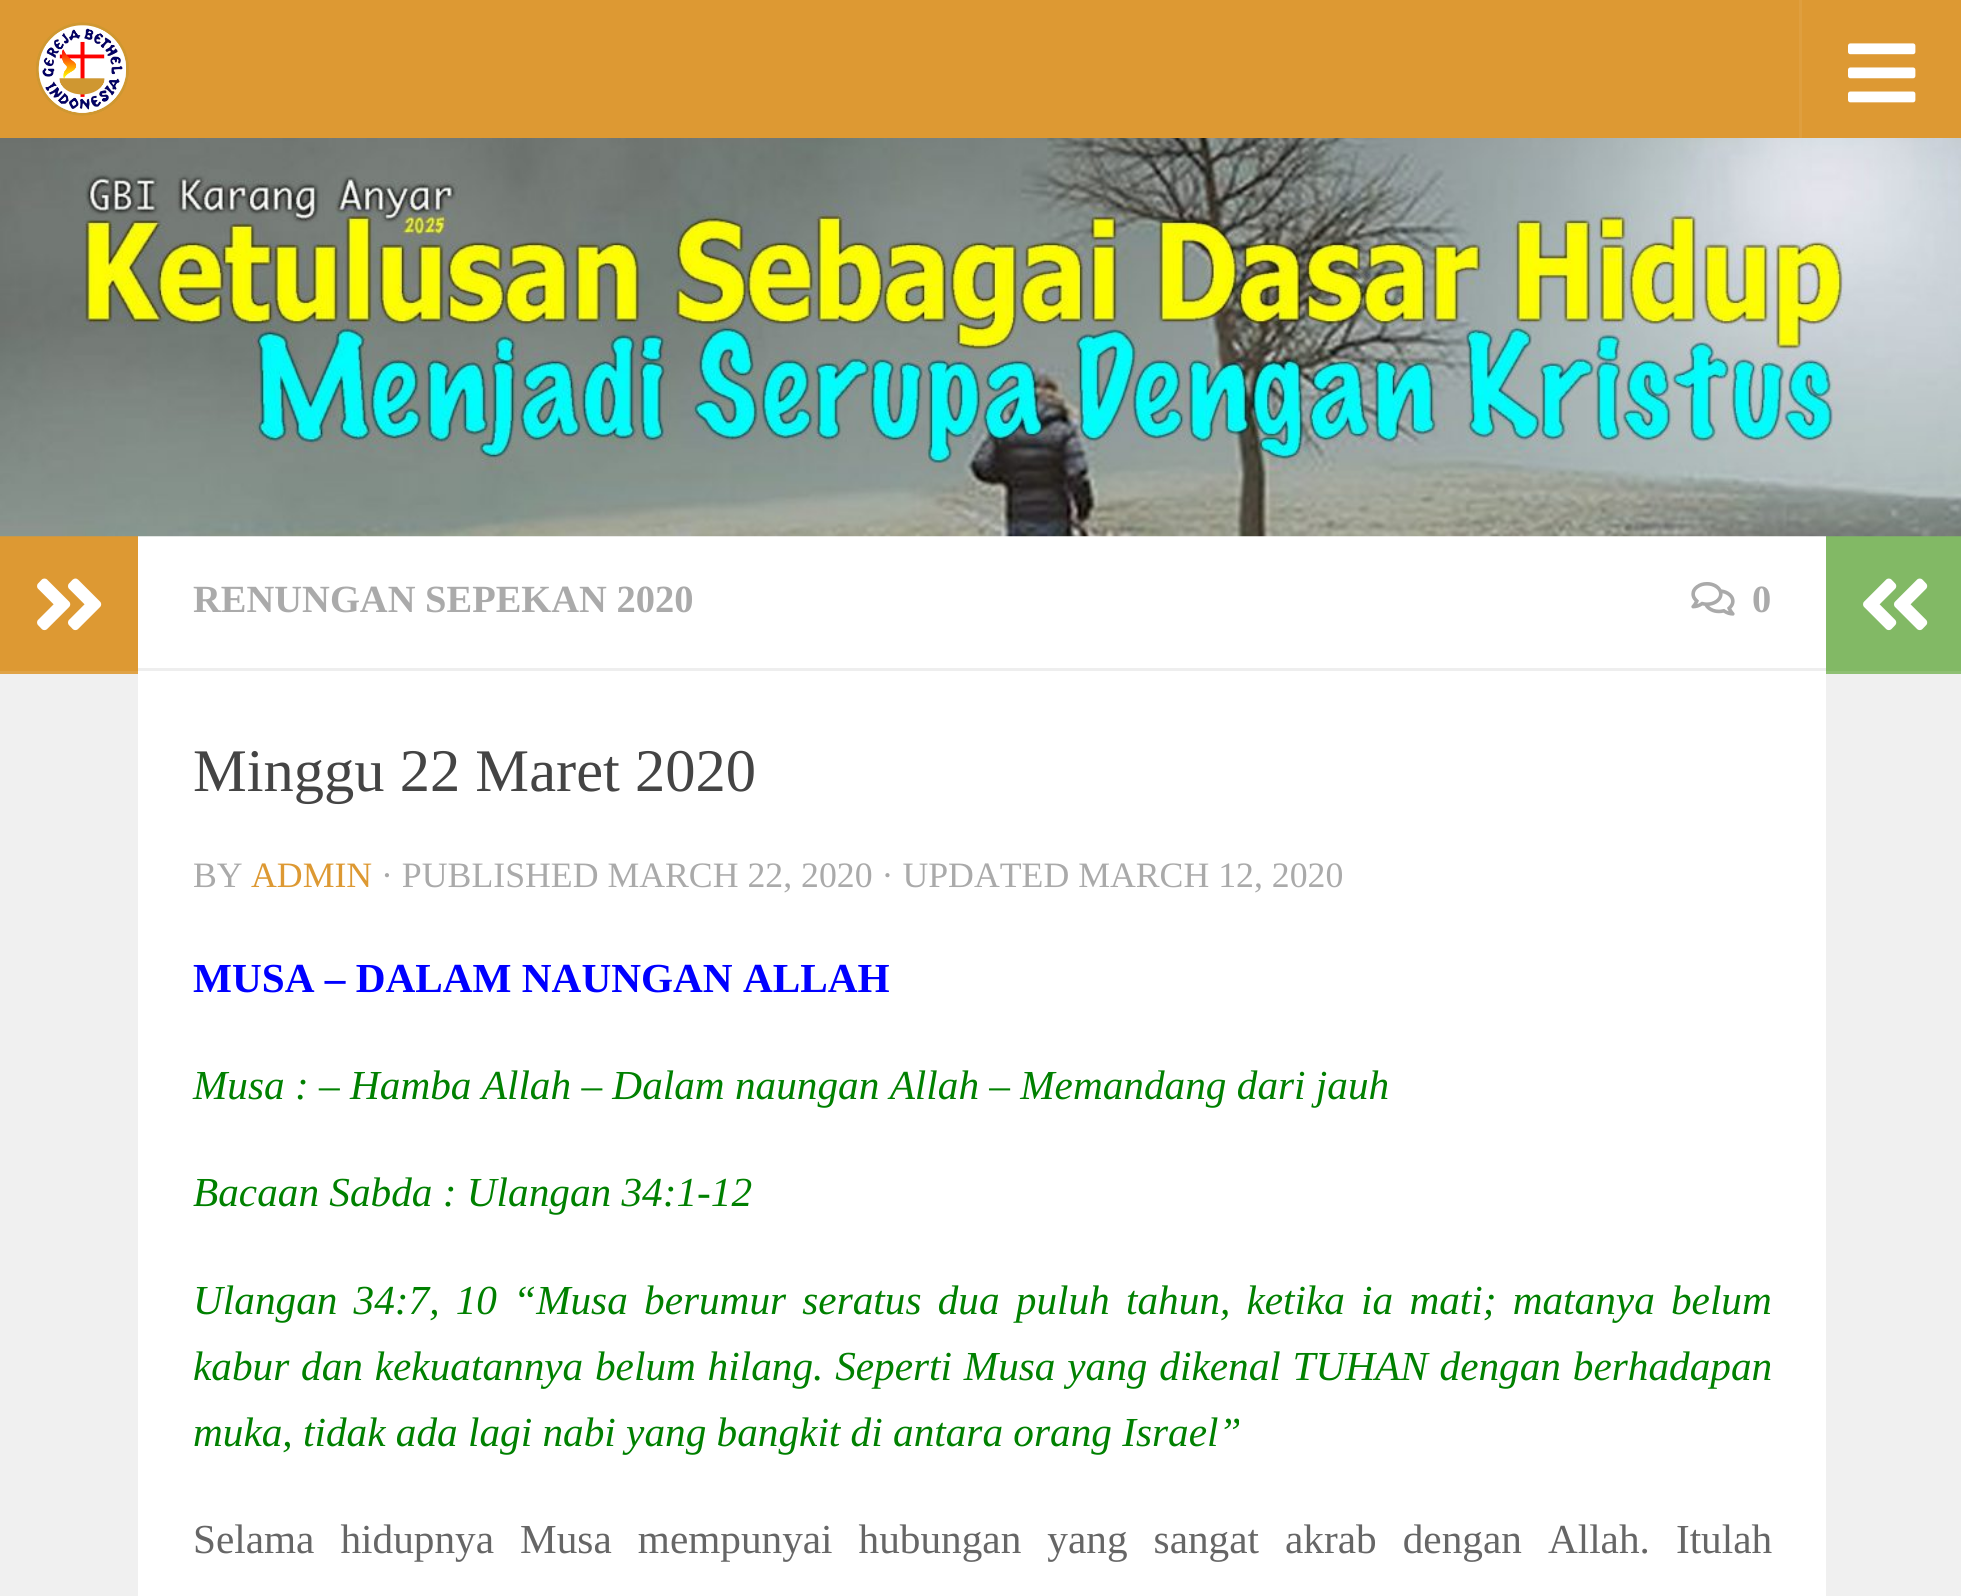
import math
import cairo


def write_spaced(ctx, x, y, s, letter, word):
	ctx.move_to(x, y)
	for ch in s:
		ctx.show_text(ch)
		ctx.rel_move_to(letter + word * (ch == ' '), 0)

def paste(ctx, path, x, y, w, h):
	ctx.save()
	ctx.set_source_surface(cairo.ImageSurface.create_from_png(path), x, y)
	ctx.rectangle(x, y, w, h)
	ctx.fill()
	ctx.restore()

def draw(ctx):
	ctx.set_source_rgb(1, 1, 1)
	ctx.paint()
	ctx.set_source_rgb(0.867, 0.6, 0.2)
	ctx.rectangle(0, 0, 1961, 138)
	ctx.fill()
	paste(ctx, 'media/1.png', 36, 22, 93, 94)
	ctx.set_source_rgb(0.875, 0.624, 0.247)
	ctx.rectangle(1799, 0, 3, 138)
	ctx.fill()
	paste(ctx, 'media/2.png', 1848, 43, 68, 60)
	ctx.set_source_rgb(0.867, 0.6, 0.2)
	ctx.rectangle(0, 536, 138, 135)
	ctx.fill()
	ctx.set_source_rgb(0.51, 0.725, 0.396)
	ctx.rectangle(1826, 536, 135, 135)
	ctx.fill()
	paste(ctx, 'media/3.png', 0, 138, 1961, 399)
	ctx.set_source_rgb(0.941, 0.941, 0.941)
	ctx.rectangle(0, 674, 138, 922)
	ctx.fill()
	ctx.set_source_rgb(0.878, 0.639, 0.278)
	ctx.rectangle(0, 671, 138, 3)
	ctx.fill()
	paste(ctx, 'media/4.png', 37, 578, 65, 53)
	ctx.set_source_rgb(0.933, 0.933, 0.933)
	ctx.rectangle(138, 668, 1688, 3)
	ctx.fill()
	ctx.select_font_face('Liberation Serif', cairo.FONT_SLANT_NORMAL, cairo.FONT_WEIGHT_BOLD)
	ctx.set_font_size(38.5)
	ctx.set_source_rgb(0.667, 0.667, 0.667)
	ctx.move_to(193, 612)
	ctx.show_text('RENUNGAN SEPEKAN 2020')
	paste(ctx, 'media/5.png', 1691, 582, 44, 34)
	ctx.move_to(1752, 612)
	ctx.show_text('0')
	ctx.select_font_face('Liberation Serif')
	ctx.set_font_size(60.5)
	ctx.set_source_rgb(0.267, 0.267, 0.267)
	ctx.move_to(193, 791)
	ctx.show_text('Minggu 22 Maret 2020')
	ctx.set_font_size(35.75)
	ctx.set_source_rgb(0.667, 0.667, 0.667)
	ctx.move_to(193, 887)
	ctx.show_text('BY')
	ctx.set_source_rgb(0.867, 0.6, 0.2)
	ctx.move_to(251, 887)
	ctx.show_text('ADMIN')
	ctx.set_source_rgb(0.667, 0.667, 0.667)
	ctx.move_to(381, 887)
	ctx.show_text('· PUBLISHED MARCH 22, 2020 · UPDATED MARCH 12, 2020')
	ctx.select_font_face('Liberation Serif', cairo.FONT_SLANT_NORMAL, cairo.FONT_WEIGHT_BOLD)
	ctx.set_font_size(41.25)
	ctx.set_source_rgb(0, 0, 1)
	ctx.move_to(193, 992)
	ctx.show_text('MUSA – DALAM NAUNGAN ALLAH')
	ctx.select_font_face('Liberation Serif', cairo.FONT_SLANT_ITALIC)
	ctx.set_source_rgb(0, 0.502, 0)
	ctx.move_to(193, 1099)
	ctx.show_text('Musa : – Hamba Allah – Dalam naungan Allah – Memandang dari jauh')
	ctx.move_to(193, 1206)
	ctx.show_text('Bacaan Sabda : Ulangan 34:1-12')
	write_spaced(ctx, 193, 1314, 'Ulangan 34:7, 10 “Musa berumur seratus dua puluh tahun, ketika ia mati; matanya belum', 0, 5.9)
	write_spaced(ctx, 193, 1380, 'kabur dan kekuatannya belum hilang. Seperti Musa yang dikenal TUHAN dengan berhadapan', 0, 1.5)
	ctx.move_to(193, 1446)
	ctx.show_text('muka, tidak ada lagi nabi yang bangkit di antara orang Israel”')
	ctx.select_font_face('Liberation Serif')
	ctx.set_source_rgb(0.4, 0.4, 0.4)
	write_spaced(ctx, 193, 1553, 'Selama hidupnya Musa mempunyai hubungan yang sangat akrab dengan Allah. Itulah', 0, 15.75)
	ctx.set_source_rgb(0.561, 0.753, 0.455)
	ctx.rectangle(1826, 671, 135, 3)
	ctx.fill()
	paste(ctx, 'media/6.png', 1863, 578, 65, 53)
	ctx.set_source_rgb(0.941, 0.941, 0.941)
	ctx.rectangle(1826, 674, 135, 922)
	ctx.fill()


surface = cairo.ImageSurface(cairo.FORMAT_RGB24, 1961, 1596)
ctx = cairo.Context(surface)
options = cairo.FontOptions()
options.set_hint_metrics(cairo.HINT_METRICS_OFF)
options.set_hint_style(cairo.HINT_STYLE_NONE)
ctx.set_font_options(options)
ctx.set_miter_limit(4)
draw(ctx)
surface.write_to_png('image.png')
